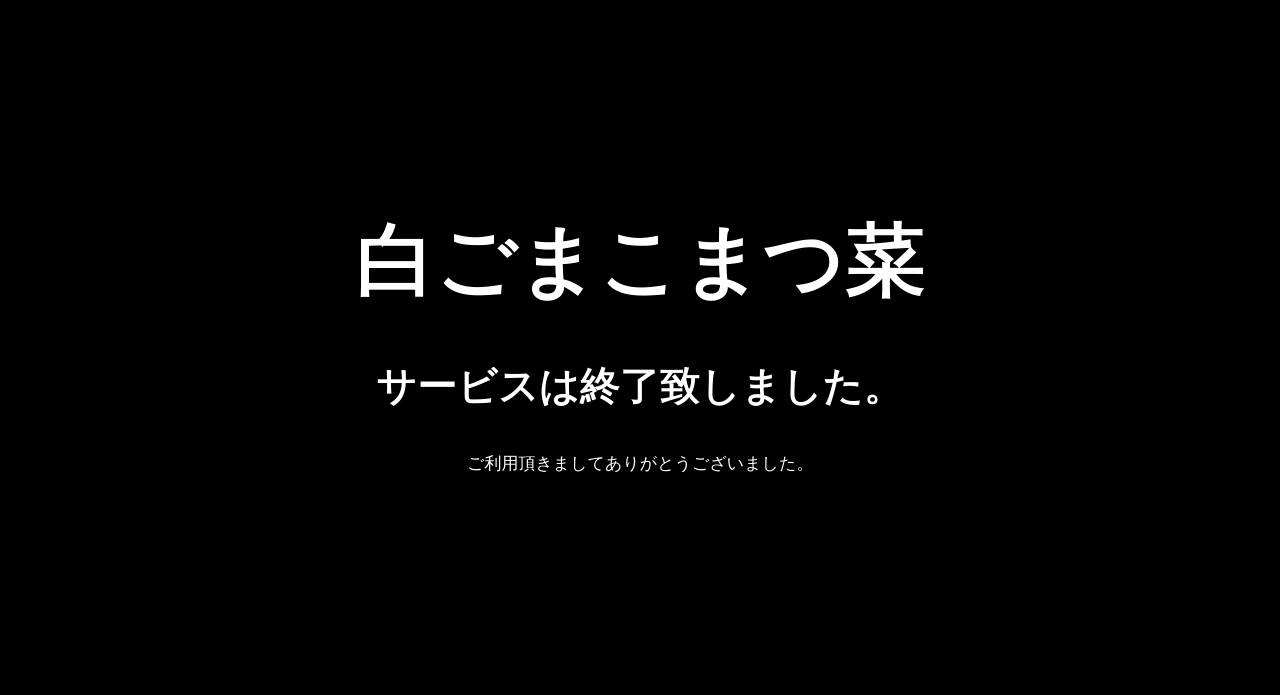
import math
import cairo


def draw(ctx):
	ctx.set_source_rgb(0, 0, 0)
	ctx.paint()
	ctx.select_font_face('WenQuanYi Zen Hei', cairo.FONT_SLANT_NORMAL, cairo.FONT_WEIGHT_BOLD)
	ctx.set_font_size(80)
	ctx.set_source_rgb(1, 1, 1)
	ctx.move_to(355, 289)
	ctx.show_text('白ごまこまつ菜')
	ctx.set_font_size(40)
	ctx.move_to(376, 400)
	ctx.show_text('サービスは終了致しました。')
	ctx.select_font_face('WenQuanYi Zen Hei Medium')
	ctx.set_font_size(17)
	ctx.move_to(467, 469)
	ctx.show_text('ご利用頂きましてありがとうございました。')


surface = cairo.ImageSurface(cairo.FORMAT_RGB24, 1280, 695)
ctx = cairo.Context(surface)
options = cairo.FontOptions()
options.set_hint_metrics(cairo.HINT_METRICS_OFF)
options.set_hint_style(cairo.HINT_STYLE_NONE)
ctx.set_font_options(options)
ctx.set_miter_limit(4)
draw(ctx)
surface.write_to_png('image.png')
